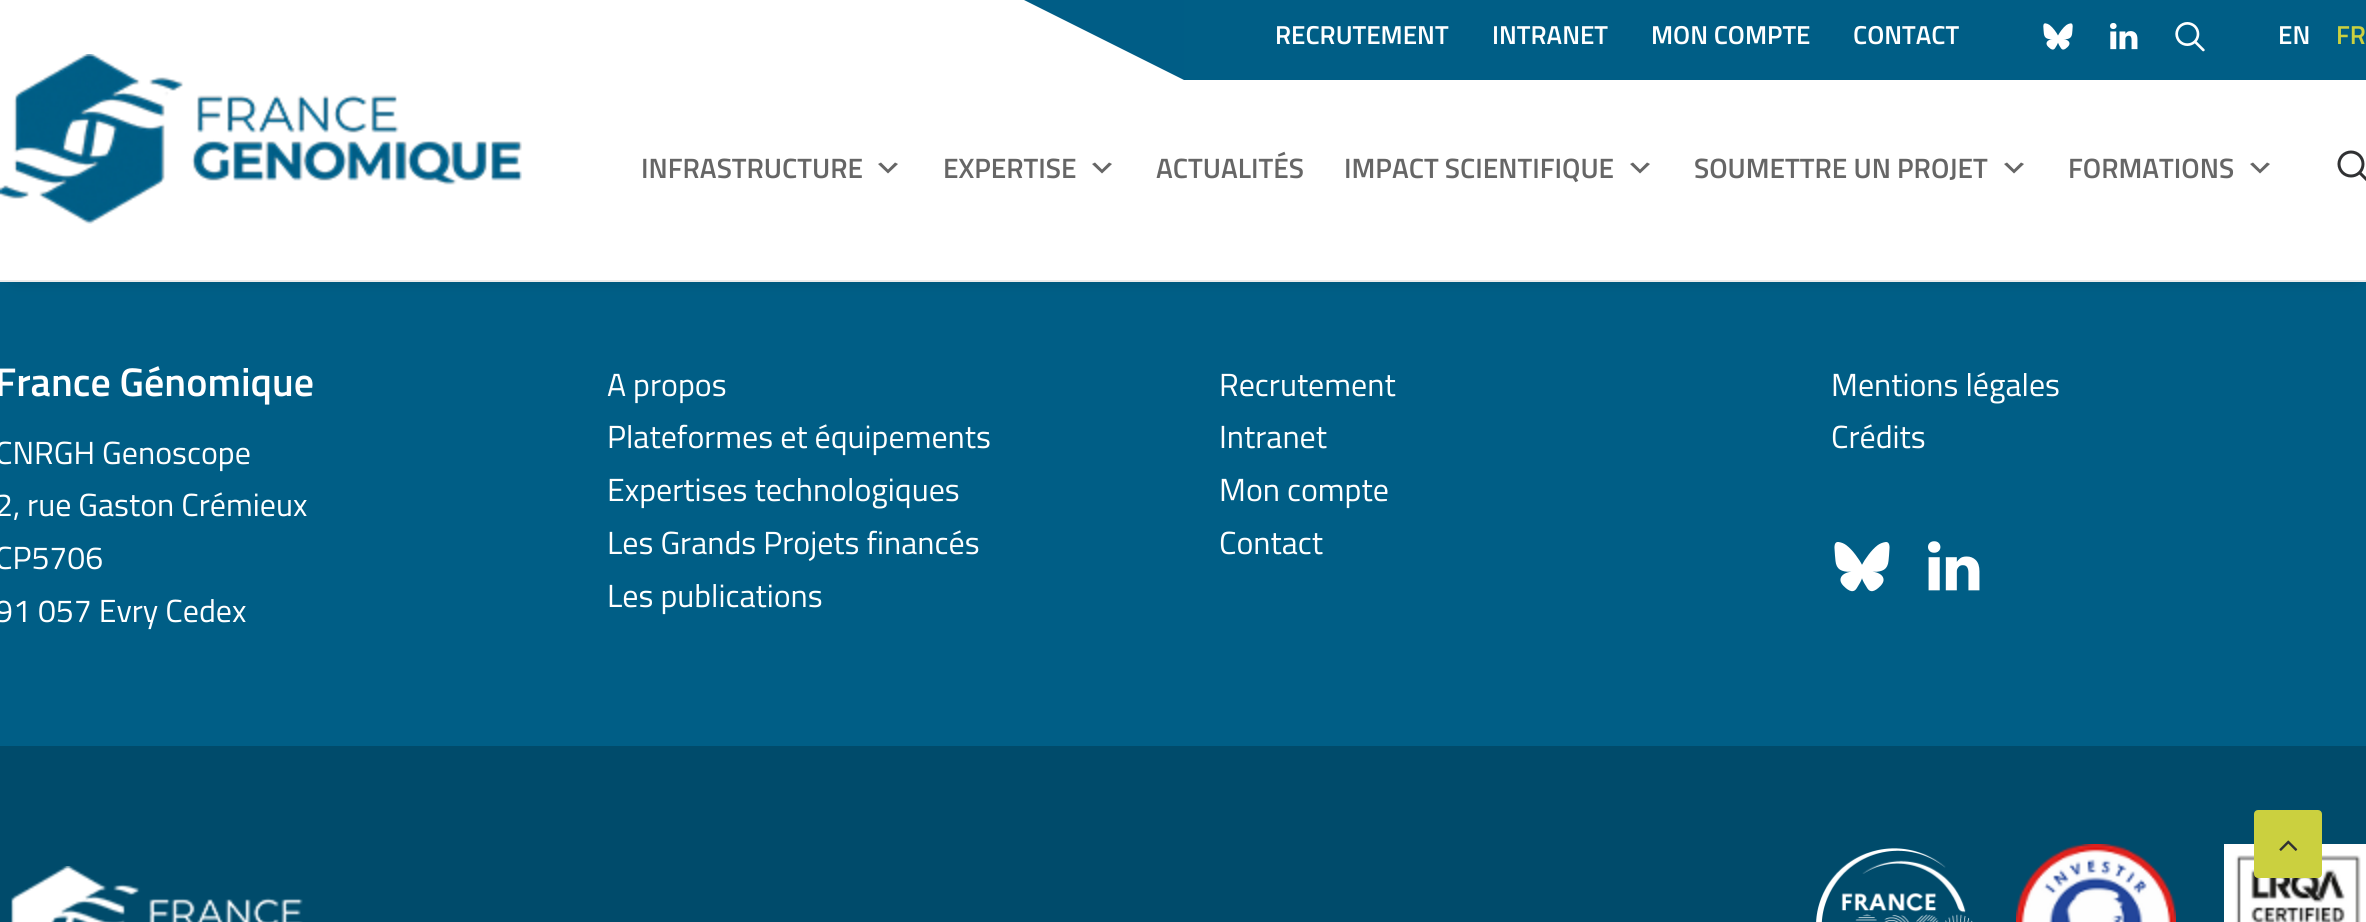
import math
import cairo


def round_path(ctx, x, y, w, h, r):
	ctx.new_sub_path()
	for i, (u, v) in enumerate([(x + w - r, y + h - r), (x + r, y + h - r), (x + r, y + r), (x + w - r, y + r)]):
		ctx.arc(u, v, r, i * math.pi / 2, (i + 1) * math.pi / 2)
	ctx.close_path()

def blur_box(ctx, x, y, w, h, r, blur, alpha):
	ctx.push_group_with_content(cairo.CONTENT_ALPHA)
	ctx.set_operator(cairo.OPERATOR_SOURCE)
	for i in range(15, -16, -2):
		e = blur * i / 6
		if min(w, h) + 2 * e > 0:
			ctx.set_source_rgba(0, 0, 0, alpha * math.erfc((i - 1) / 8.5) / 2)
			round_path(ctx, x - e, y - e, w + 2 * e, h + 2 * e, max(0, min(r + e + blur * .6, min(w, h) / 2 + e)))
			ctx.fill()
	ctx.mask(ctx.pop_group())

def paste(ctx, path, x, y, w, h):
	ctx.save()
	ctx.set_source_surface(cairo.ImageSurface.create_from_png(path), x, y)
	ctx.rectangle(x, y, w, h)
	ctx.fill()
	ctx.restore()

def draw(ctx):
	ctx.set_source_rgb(0, 0.369, 0.525)
	ctx.paint()
	ctx.set_source_rgb(0, 0, 0)
	blur_box(ctx, 16, 28, 2336, 242, 0, 10, 0.6)
	ctx.set_source_rgb(1, 1, 1)
	ctx.rectangle(0, 0, 2366, 280)
	ctx.fill()
	ctx.set_source_rgb(0, 0.369, 0.525)
	ctx.rectangle(1184, 0, 1182, 80)
	ctx.fill()
	ctx.set_source_rgb(0, 0.365, 0.525)
	ctx.new_path()
	ctx.move_to(1024, 0)
	ctx.line_to(1184, 0)
	ctx.line_to(1184, 80)
	ctx.close_path()
	ctx.fill()
	ctx.select_font_face('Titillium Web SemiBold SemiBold')
	ctx.set_font_size(26)
	ctx.set_source_rgb(1, 1, 1)
	for x, y, s in [
		(1275, 44, 'RECRUTEMENT'),
		(1492, 44, 'INTRANET'),
		(1651, 44, 'MON COMPTE'),
		(1853, 44, 'CONTACT'),
	]:
		ctx.move_to(x, y)
		ctx.show_text(s)
	paste(ctx, 'media/1.png', 2043, 23, 30, 27)
	paste(ctx, 'media/2.png', 2110, 22, 28, 28)
	paste(ctx, 'media/3.png', 2175, 22, 30, 30)
	ctx.move_to(2278, 44)
	ctx.show_text('EN')
	ctx.set_source_rgb(0.796, 0.816, 0.247)
	ctx.move_to(2336, 44)
	ctx.show_text('FR')
	ctx.set_source_rgb(0.918, 0.918, 0.918)
	ctx.rectangle(0, 280, 2366, 2)
	ctx.fill()
	paste(ctx, 'media/4.png', 0, 54, 522, 170)
	ctx.set_font_size(28)
	ctx.set_source_rgb(0.4, 0.4, 0.4)
	ctx.move_to(641, 178)
	ctx.show_text('INFRASTRUCTURE')
	ctx.new_path()
	ctx.move_to(881, 162.5)
	ctx.line_to(888, 169.5)
	ctx.line_to(895, 162.5)
	ctx.line_to(898, 164)
	ctx.line_to(888, 173.5)
	ctx.line_to(878, 164)
	ctx.close_path()
	ctx.fill()
	ctx.move_to(943, 178)
	ctx.show_text('EXPERTISE')
	ctx.new_path()
	ctx.move_to(1095, 162.5)
	ctx.line_to(1102, 169.5)
	ctx.line_to(1109, 162.5)
	ctx.line_to(1112, 164)
	ctx.line_to(1102, 173.5)
	ctx.line_to(1092, 164)
	ctx.close_path()
	ctx.fill()
	ctx.move_to(1156, 178)
	ctx.show_text('ACTUALITÉS')
	ctx.move_to(1344, 178)
	ctx.show_text('IMPACT SCIENTIFIQUE')
	ctx.new_path()
	ctx.move_to(1633, 162.5)
	ctx.line_to(1640, 169.5)
	ctx.line_to(1647, 162.5)
	ctx.line_to(1650, 164)
	ctx.line_to(1640, 173.5)
	ctx.line_to(1630, 164)
	ctx.close_path()
	ctx.fill()
	ctx.move_to(1694, 178)
	ctx.show_text('SOUMETTRE UN PROJET')
	ctx.new_path()
	ctx.move_to(2007, 162.5)
	ctx.line_to(2014, 169.5)
	ctx.line_to(2021, 162.5)
	ctx.line_to(2024, 164)
	ctx.line_to(2014, 173.5)
	ctx.line_to(2004, 164)
	ctx.close_path()
	ctx.fill()
	ctx.move_to(2068, 178)
	ctx.show_text('FORMATIONS')
	ctx.new_path()
	ctx.move_to(2253, 162.5)
	ctx.line_to(2260, 169.5)
	ctx.line_to(2267, 162.5)
	ctx.line_to(2270, 164)
	ctx.line_to(2260, 173.5)
	ctx.line_to(2250, 164)
	ctx.close_path()
	ctx.fill()
	paste(ctx, 'media/5.png', 2337, 150, 29, 31)
	ctx.set_font_size(40)
	ctx.set_source_rgb(1, 1, 1)
	ctx.move_to(-5, 396)
	ctx.show_text('France Génomique')
	ctx.select_font_face('Titillium Web')
	ctx.set_font_size(32)
	for x, y, s in [
		(-5, 464, 'CNRGH Genoscope'),
		(-5, 516, '2, rue Gaston Crémieux'),
		(-5, 569, 'CP5706'),
		(-5, 622, '91 057 Evry Cedex'),
		(607, 396, 'A propos'),
		(607, 448, 'Plateformes et équipements'),
		(607, 501, 'Expertises technologiques'),
		(607, 554, 'Les Grands Projets financés'),
		(607, 607, 'Les publications'),
		(1219, 396, 'Recrutement'),
		(1219, 448, 'Intranet'),
		(1219, 501, 'Mon compte'),
		(1219, 554, 'Contact'),
		(1831, 396, 'Mentions légales'),
		(1831, 448, 'Crédits'),
	]:
		ctx.move_to(x, y)
		ctx.show_text(s)
	paste(ctx, 'media/6.png', 1834, 542, 56, 50)
	paste(ctx, 'media/7.png', 1928, 541, 52, 50)
	ctx.set_source_rgb(0, 0.294, 0.42)
	ctx.rectangle(0, 746, 2366, 176)
	ctx.fill()
	paste(ctx, 'media/8.png', 11, 866, 292, 56)
	paste(ctx, 'media/9.png', 1816, 848, 157, 74)
	paste(ctx, 'media/10.png', 2016, 844, 160, 78)
	paste(ctx, 'media/11.png', 2224, 844, 142, 78)
	ctx.set_source_rgb(0.796, 0.816, 0.247)
	round_path(ctx, 2255, 811, 66, 66, 3)
	ctx.fill_preserve()
	ctx.stroke()
	paste(ctx, 'media/12.png', 2279, 840, 19, 11)


surface = cairo.ImageSurface(cairo.FORMAT_RGB24, 2366, 922)
ctx = cairo.Context(surface)
options = cairo.FontOptions()
options.set_hint_metrics(cairo.HINT_METRICS_OFF)
options.set_hint_style(cairo.HINT_STYLE_NONE)
ctx.set_font_options(options)
ctx.set_miter_limit(4)
draw(ctx)
surface.write_to_png('image.png')
